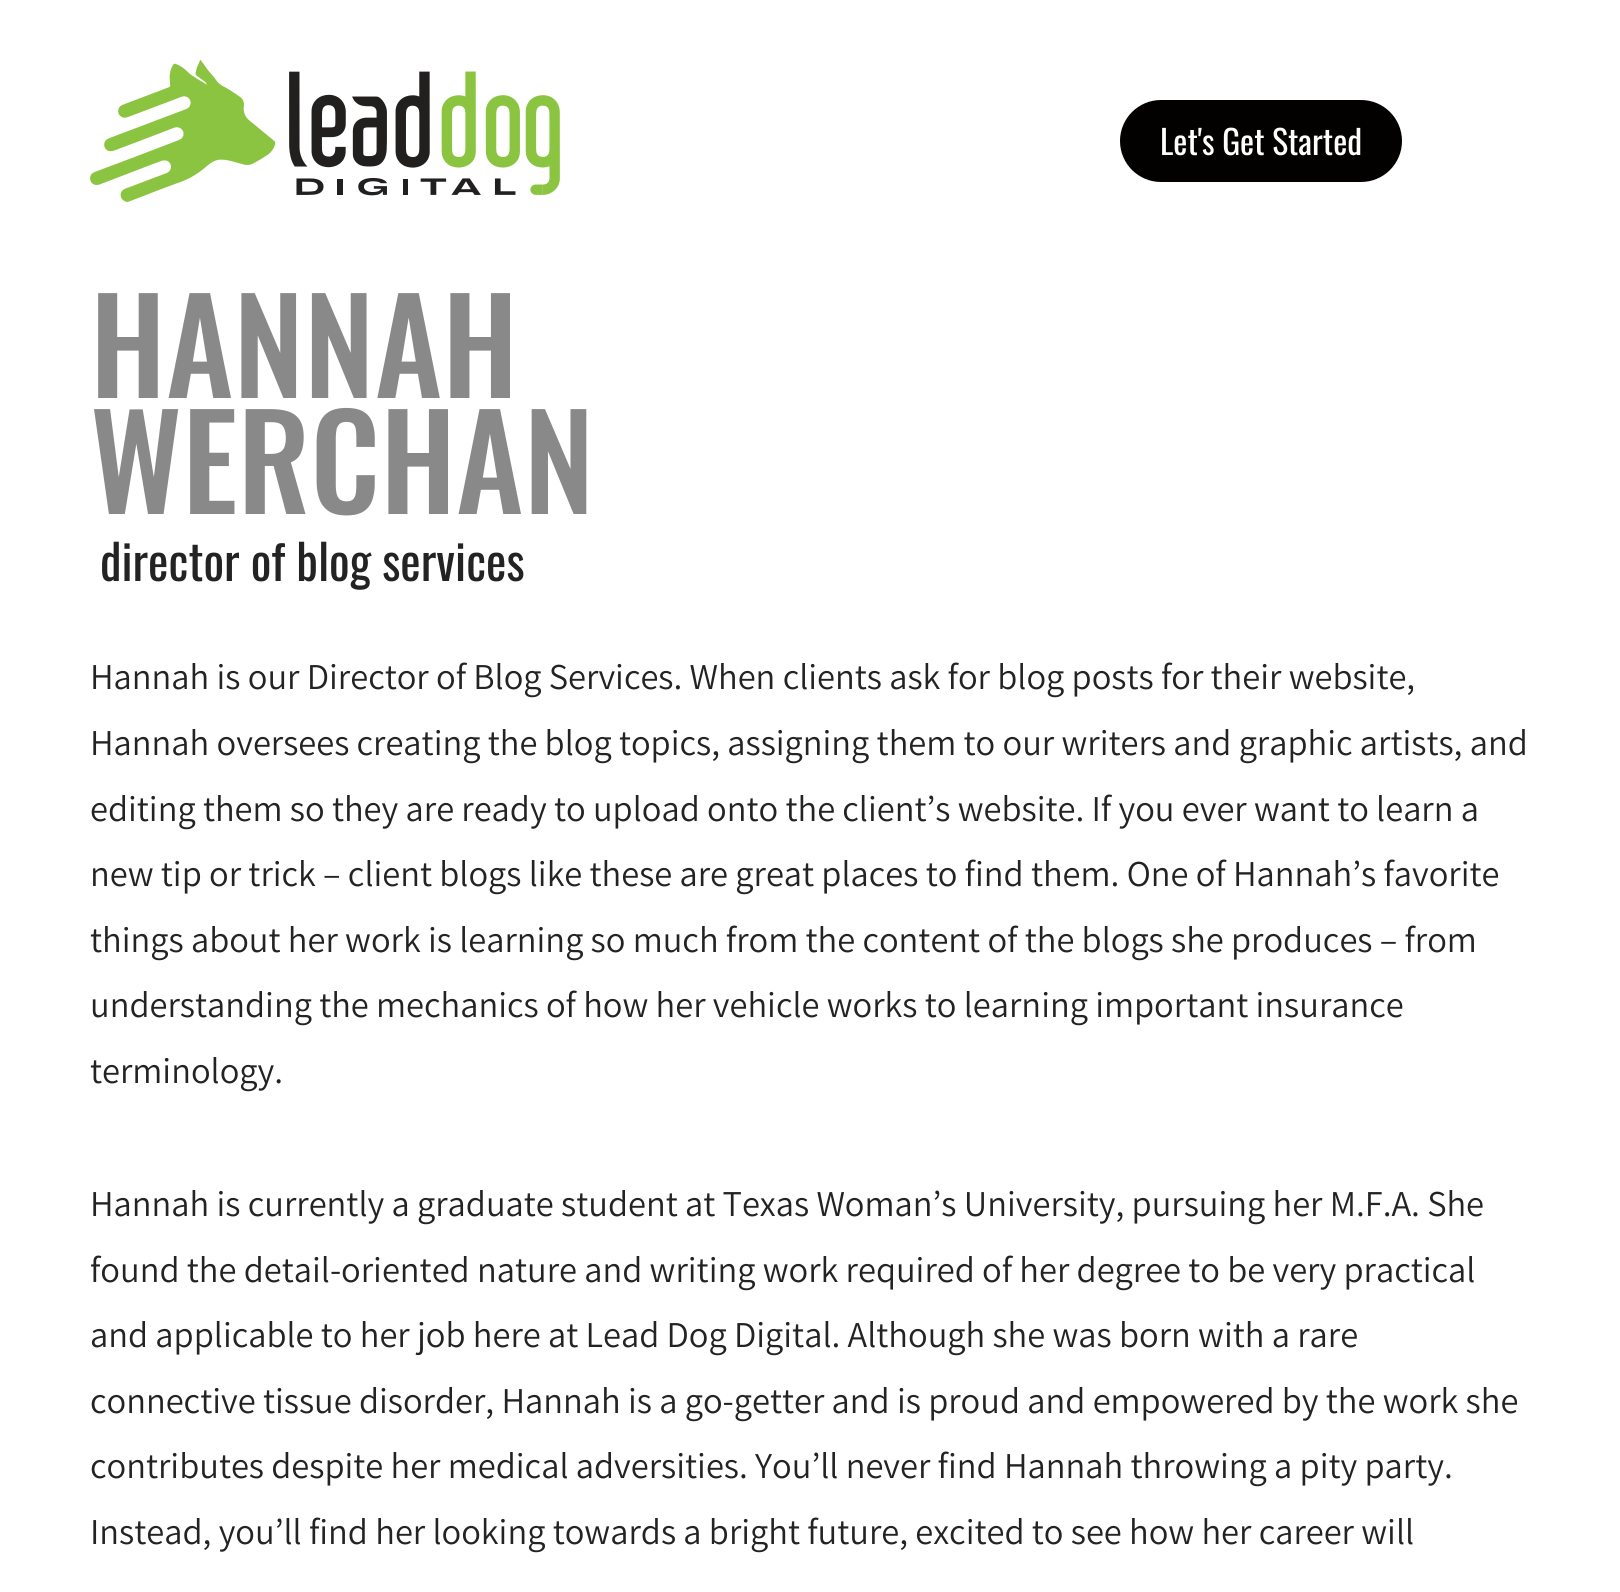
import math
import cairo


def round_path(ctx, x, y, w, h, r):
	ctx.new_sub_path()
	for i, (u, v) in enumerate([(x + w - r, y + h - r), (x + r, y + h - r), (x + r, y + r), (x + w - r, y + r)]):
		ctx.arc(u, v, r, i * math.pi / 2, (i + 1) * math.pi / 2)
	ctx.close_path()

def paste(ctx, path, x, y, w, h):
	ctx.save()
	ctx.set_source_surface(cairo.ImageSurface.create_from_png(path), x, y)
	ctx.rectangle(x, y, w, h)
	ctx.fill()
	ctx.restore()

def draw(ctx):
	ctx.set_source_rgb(1, 1, 1)
	ctx.paint()
	paste(ctx, 'media/1.png', 90, 60, 470, 142)
	ctx.set_source_rgb(0.012, 0, 0)
	round_path(ctx, 1120, 100, 282, 82, 41)
	ctx.fill()
	ctx.select_font_face('Oswald')
	ctx.set_font_size(33.5)
	ctx.set_source_rgb(1, 1, 1)
	ctx.move_to(1160, 155)
	ctx.show_text('Let\'s Get Started')
	ctx.select_font_face('Oswald Medium')
	ctx.set_font_size(129.5)
	ctx.set_source_rgb(0.537, 0.537, 0.537)
	ctx.move_to(90, 398)
	ctx.show_text('HANNAH')
	ctx.move_to(90, 514)
	ctx.show_text('WERCHAN')
	ctx.select_font_face('Oswald')
	ctx.set_font_size(48.5)
	ctx.set_source_rgb(0.137, 0.137, 0.137)
	ctx.move_to(100, 581)
	ctx.show_text('director of blog services')
	ctx.select_font_face('Assistant')
	ctx.set_font_size(36.4)
	for x, y, s in [
		(90, 689, 'Hannah is our Director of Blog Services. When clients ask for blog posts for their website,'),
		(90, 755, 'Hannah oversees creating the blog topics, assigning them to our writers and graphic artists, and'),
		(90, 821, 'editing them so they are ready to upload onto the client’s website. If you ever want to learn a'),
		(90, 886, 'new tip or trick – client blogs like these are great places to find them. One of Hannah’s favorite'),
		(90, 952, 'things about her work is learning so much from the content of the blogs she produces – from'),
		(90, 1017, 'understanding the mechanics of how her vehicle works to learning important insurance'),
		(90, 1083, 'terminology.'),
		(90, 1216, 'Hannah is currently a graduate student at Texas Woman’s University, pursuing her M.F.A. She'),
		(90, 1282, 'found the detail-oriented nature and writing work required of her degree to be very practical'),
		(90, 1347, 'and applicable to her job here at Lead Dog Digital. Although she was born with a rare'),
		(90, 1413, 'connective tissue disorder, Hannah is a go-getter and is proud and empowered by the work she'),
		(90, 1478, 'contributes despite her medical adversities. You’ll never find Hannah throwing a pity party.'),
		(90, 1544, 'Instead, you’ll find her looking towards a bright future, excited to see how her career will'),
	]:
		ctx.move_to(x, y)
		ctx.show_text(s)


surface = cairo.ImageSurface(cairo.FORMAT_RGB24, 1620, 1592)
ctx = cairo.Context(surface)
options = cairo.FontOptions()
options.set_hint_metrics(cairo.HINT_METRICS_OFF)
options.set_hint_style(cairo.HINT_STYLE_NONE)
ctx.set_font_options(options)
ctx.set_miter_limit(4)
draw(ctx)
surface.write_to_png('image.png')
